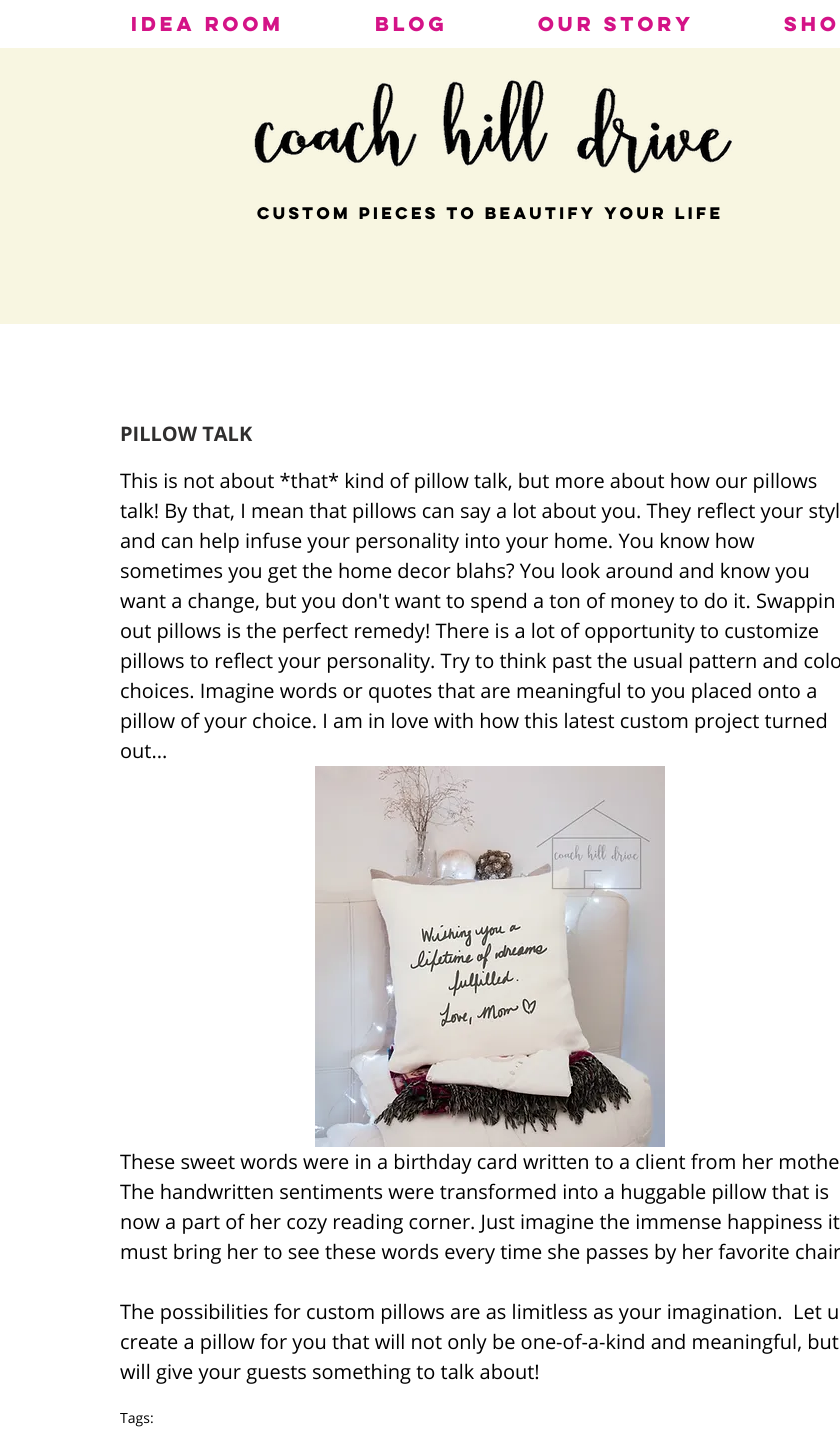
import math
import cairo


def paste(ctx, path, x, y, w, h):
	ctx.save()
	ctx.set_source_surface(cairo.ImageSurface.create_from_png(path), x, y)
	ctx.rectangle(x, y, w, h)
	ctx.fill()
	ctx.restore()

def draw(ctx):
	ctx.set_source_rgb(1, 1, 1)
	ctx.paint()
	ctx.select_font_face('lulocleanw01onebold', cairo.FONT_SLANT_NORMAL, cairo.FONT_WEIGHT_BOLD)
	ctx.set_font_size(18)
	ctx.set_source_rgb(0.831, 0.075, 0.529)
	for x, y, s in [
		(131, 31, 'IDEA ROOM'),
		(375, 31, 'BLOG'),
		(538, 31, 'OUR STORY'),
		(784, 31, 'SHO'),
	]:
		ctx.move_to(x, y)
		ctx.show_text(s)
	ctx.set_source_rgb(0.969, 0.961, 0.882)
	ctx.rectangle(0, 48, 840, 276)
	ctx.fill()
	paste(ctx, 'media/1.png', 253, 78, 480, 96)
	ctx.set_font_size(15)
	ctx.set_source_rgb(0, 0, 0)
	ctx.move_to(257, 219)
	ctx.show_text('CUSTOM Pieces TO BEAUTIFY YOUR LIFE')
	ctx.select_font_face('Open Sans', cairo.FONT_SLANT_NORMAL, cairo.FONT_WEIGHT_BOLD)
	ctx.set_font_size(20)
	ctx.set_source_rgb(0.184, 0.18, 0.18)
	ctx.move_to(120, 441)
	ctx.show_text('PILLOW TALK')
	ctx.select_font_face('Open Sans')
	ctx.set_source_rgb(0, 0, 0)
	for x, y, s in [
		(120, 488, 'This is not about *that* kind of pillow talk, but more about how our pillows'),
		(120, 518, 'talk! By that, I mean that pillows can say a lot about you. They reflect your styl'),
		(120, 548, 'and can help infuse your personality into your home. You know how'),
		(120, 578, 'sometimes you get the home decor blahs? You look around and know you'),
		(120, 608, 'want a change, but you don\'t want to spend a ton of money to do it. Swappin'),
		(120, 638, 'out pillows is the perfect remedy! There is a lot of opportunity to customize'),
		(120, 668, 'pillows to reflect your personality. Try to think past the usual pattern and colo'),
		(120, 698, 'choices. Imagine words or quotes that are meaningful to you placed onto a'),
		(120, 728, 'pillow of your choice. I am in love with how this latest custom project turned'),
		(120, 758, 'out...'),
	]:
		ctx.move_to(x, y)
		ctx.show_text(s)
	paste(ctx, 'media/2.png', 315, 766, 350, 381)
	for x, y, s in [
		(120, 1169, 'These sweet words were in a birthday card written to a client from her mothe'),
		(120, 1199, 'The handwritten sentiments were transformed into a huggable pillow that is'),
		(120, 1229, 'now a part of her cozy reading corner. Just imagine the immense happiness it'),
		(120, 1259, 'must bring her to see these words every time she passes by her favorite chair'),
		(120, 1319, 'The possibilities for custom pillows are as limitless as your imagination.  Let u'),
		(120, 1349, 'create a pillow for you that will not only be one-of-a-kind and meaningful, but'),
		(120, 1379, 'will give your guests something to talk about!'),
	]:
		ctx.move_to(x, y)
		ctx.show_text(s)
	ctx.set_font_size(14)
	ctx.move_to(120, 1423)
	ctx.show_text('Tags:')


surface = cairo.ImageSurface(cairo.FORMAT_RGB24, 840, 1439)
ctx = cairo.Context(surface)
options = cairo.FontOptions()
options.set_hint_metrics(cairo.HINT_METRICS_OFF)
options.set_hint_style(cairo.HINT_STYLE_NONE)
ctx.set_font_options(options)
ctx.set_miter_limit(4)
draw(ctx)
surface.write_to_png('image.png')
